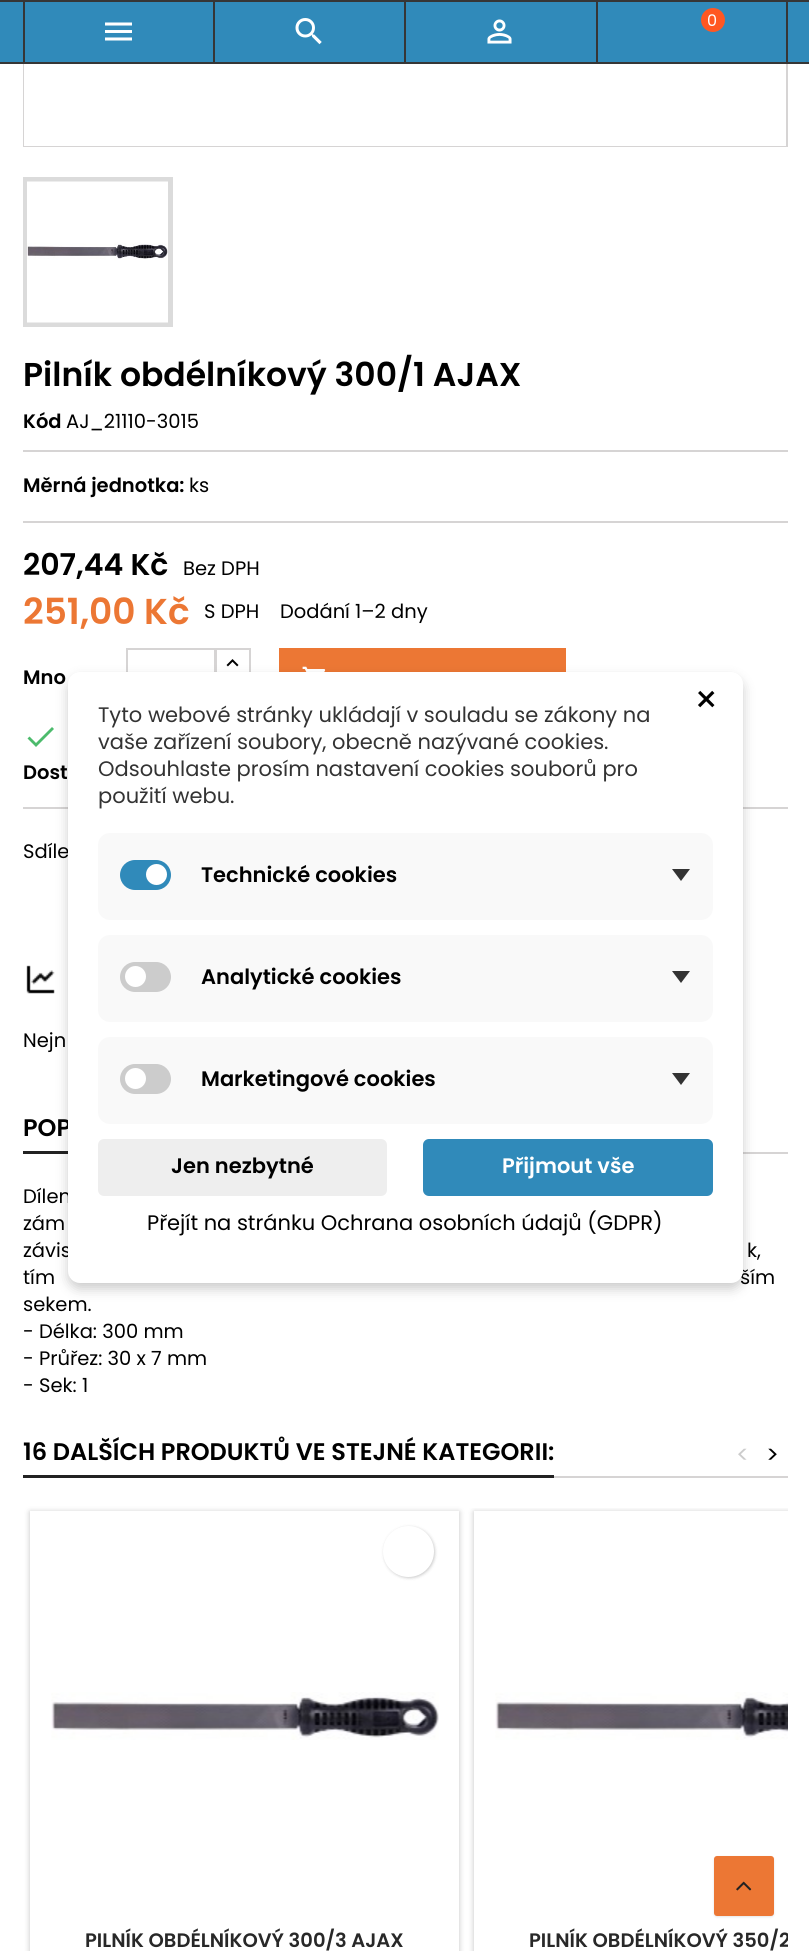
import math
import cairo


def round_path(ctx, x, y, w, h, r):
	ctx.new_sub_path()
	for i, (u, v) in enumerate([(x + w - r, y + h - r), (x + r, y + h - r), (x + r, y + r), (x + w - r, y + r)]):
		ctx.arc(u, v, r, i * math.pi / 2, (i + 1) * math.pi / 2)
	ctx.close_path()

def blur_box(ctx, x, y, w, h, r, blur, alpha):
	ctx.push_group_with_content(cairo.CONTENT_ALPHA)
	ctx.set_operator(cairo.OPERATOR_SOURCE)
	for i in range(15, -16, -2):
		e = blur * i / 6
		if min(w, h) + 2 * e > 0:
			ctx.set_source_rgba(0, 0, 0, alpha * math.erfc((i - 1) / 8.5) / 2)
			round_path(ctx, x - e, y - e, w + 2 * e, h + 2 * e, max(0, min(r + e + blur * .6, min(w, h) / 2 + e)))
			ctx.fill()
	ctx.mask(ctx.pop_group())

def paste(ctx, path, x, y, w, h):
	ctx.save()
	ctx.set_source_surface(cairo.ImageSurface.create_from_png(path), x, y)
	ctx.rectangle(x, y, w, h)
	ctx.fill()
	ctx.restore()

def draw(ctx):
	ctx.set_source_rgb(1, 1, 1)
	ctx.paint()
	ctx.rectangle(24, -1, 763, 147)
	ctx.set_source_rgb(0.839, 0.831, 0.831)
	ctx.stroke()
	ctx.set_source_rgb(0.188, 0.541, 0.729)
	ctx.rectangle(0, 2, 809, 60)
	ctx.fill()
	ctx.set_source_rgb(0.212, 0.212, 0.212)
	ctx.rectangle(0, 0, 809, 2)
	ctx.rectangle(0, 62, 809, 2)
	ctx.rectangle(213, 2, 2, 60)
	ctx.rectangle(23, 2, 2, 60)
	ctx.fill()
	paste(ctx, 'media/1.png', 105, 22, 27, 19)
	ctx.rectangle(404, 2, 2, 60)
	ctx.fill()
	paste(ctx, 'media/2.png', 295, 18, 27, 27)
	ctx.rectangle(596, 2, 2, 60)
	ctx.fill()
	paste(ctx, 'media/3.png', 487, 19, 25, 25)
	ctx.rectangle(786, 2, 2, 60)
	ctx.fill()
	ctx.set_source_rgb(1, 0.341, 0.133)
	ctx.arc(713, 20, 12, 0, 2 * math.pi)
	ctx.fill()
	ctx.select_font_face('Poppins')
	ctx.set_font_size(16)
	ctx.set_source_rgb(1, 1, 1)
	ctx.move_to(707, 26)
	ctx.show_text('0')
	ctx.rectangle(24, 64, 762, 82)
	ctx.fill()
	ctx.rectangle(25.5, 179.5, 145, 145)
	ctx.set_source_rgb(0.859, 0.859, 0.859)
	ctx.set_line_width(5)
	ctx.stroke()
	paste(ctx, 'media/4.png', 27, 181, 141, 142)
	ctx.select_font_face('Poppins SemiBold')
	ctx.set_font_size(33)
	ctx.set_source_rgb(0, 0, 0)
	ctx.move_to(23, 386)
	ctx.show_text('Pilník obdélníkový 300/1 AJAX')
	ctx.set_font_size(19.5)
	ctx.move_to(23, 428)
	ctx.show_text('Kód')
	ctx.select_font_face('Poppins')
	ctx.move_to(66, 428)
	ctx.show_text('AJ_21110-3015')
	ctx.set_source_rgb(0.839, 0.831, 0.831)
	ctx.rectangle(23, 450, 765, 2)
	ctx.fill()
	ctx.select_font_face('Poppins SemiBold')
	ctx.set_source_rgb(0, 0, 0)
	ctx.move_to(23, 492)
	ctx.show_text('Měrná jednotka:')
	ctx.select_font_face('Poppins')
	ctx.move_to(189, 492)
	ctx.show_text('ks')
	ctx.set_source_rgb(0.839, 0.831, 0.831)
	ctx.rectangle(23, 521, 765, 2)
	ctx.fill()
	ctx.select_font_face('Poppins SemiBold')
	ctx.set_font_size(30)
	ctx.set_source_rgb(0, 0, 0)
	ctx.move_to(23, 575)
	ctx.show_text('207,44 Kč')
	ctx.select_font_face('Poppins')
	ctx.set_font_size(19.5)
	ctx.move_to(183, 575)
	ctx.show_text('Bez DPH')
	ctx.select_font_face('Poppins SemiBold')
	ctx.set_font_size(36)
	ctx.set_source_rgb(0.922, 0.467, 0.204)
	ctx.move_to(23, 624)
	ctx.show_text('251,00 Kč')
	ctx.select_font_face('Poppins')
	ctx.set_font_size(19.5)
	ctx.set_source_rgb(0, 0, 0)
	ctx.move_to(204, 618)
	ctx.show_text('S DPH')
	ctx.move_to(280, 618)
	ctx.show_text('Dodání 1–2 dny')
	ctx.rectangle(216, 649, 34, 30)
	ctx.set_source_rgb(0.839, 0.831, 0.831)
	ctx.set_line_width(2)
	ctx.stroke()
	ctx.rectangle(127, 649, 88, 58)
	ctx.stroke()
	paste(ctx, 'media/5.png', 226, 659, 13, 8)
	ctx.set_source_rgb(0.922, 0.467, 0.204)
	ctx.rectangle(279, 648, 287, 24)
	ctx.fill()
	paste(ctx, 'media/6.png', 302, 666, 24, 6)
	ctx.select_font_face('Poppins SemiBold')
	ctx.set_source_rgb(0, 0, 0)
	ctx.move_to(23, 684)
	ctx.show_text('Mno')
	ctx.set_source_rgb(0.298, 0.733, 0.424)
	ctx.new_path()
	ctx.move_to(36, 743)
	ctx.line_to(52, 727)
	ctx.line_to(54, 729)
	ctx.line_to(36, 747)
	ctx.line_to(27.5, 738.5)
	ctx.line_to(29.5, 736.5)
	ctx.close_path()
	ctx.fill()
	ctx.set_source_rgb(0, 0, 0)
	ctx.move_to(23, 779)
	ctx.show_text('Dost')
	ctx.set_source_rgb(0.839, 0.831, 0.831)
	ctx.rectangle(23, 807, 765, 2)
	ctx.fill()
	ctx.select_font_face('Poppins')
	ctx.set_source_rgb(0, 0, 0)
	ctx.move_to(23, 858)
	ctx.show_text('Sdíle')
	paste(ctx, 'media/7.png', 26, 965, 29, 29)
	ctx.move_to(23, 1047)
	ctx.show_text('Nejn')
	ctx.set_source_rgb(0.839, 0.831, 0.831)
	ctx.rectangle(743, 1152, 45, 2)
	ctx.fill()
	ctx.set_source_rgb(0.133, 0.133, 0.133)
	ctx.rectangle(23, 1151, 45, 3)
	ctx.fill()
	ctx.select_font_face('Poppins SemiBold')
	ctx.set_font_size(24)
	ctx.set_source_rgb(0, 0, 0)
	ctx.move_to(23, 1136)
	ctx.show_text('POP')
	ctx.select_font_face('Poppins')
	ctx.set_font_size(19.5)
	for x, y, s in [
		(23, 1203, 'Dílen'),
		(23, 1230, 'zám'),
		(23, 1257, 'závis'),
		(747, 1257, 'k,'),
		(23, 1284, 'tím'),
		(740, 1284, 'ším'),
		(23, 1311, 'sekem.'),
		(23, 1338, '- Délka: 300 mm'),
		(23, 1365, '- Průřez: 30 x 7 mm'),
		(23, 1392, '- Sek: 1'),
	]:
		ctx.move_to(x, y)
		ctx.show_text(s)
	ctx.set_source_rgb(0.839, 0.831, 0.831)
	ctx.rectangle(554, 1476, 234, 2)
	ctx.fill()
	ctx.set_source_rgb(0.133, 0.133, 0.133)
	ctx.rectangle(23, 1475, 531, 3)
	ctx.fill()
	ctx.select_font_face('Poppins SemiBold')
	ctx.set_font_size(24)
	ctx.set_source_rgb(0, 0, 0)
	ctx.move_to(23, 1460)
	ctx.show_text('16 DALŠÍCH PRODUKTŮ VE STEJNÉ KATEGORII:')
	ctx.select_font_face('Poppins')
	ctx.set_source_rgb(0.8, 0.8, 0.8)
	ctx.move_to(736, 1463)
	ctx.show_text('<')
	ctx.set_source_rgb(0, 0, 0)
	ctx.move_to(766, 1463)
	ctx.show_text('>')
	ctx.save()
	ctx.set_fill_rule(cairo.FILL_RULE_EVEN_ODD)
	ctx.new_path()
	ctx.move_to(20, 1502)
	ctx.line_to(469, 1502)
	ctx.line_to(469, 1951)
	ctx.line_to(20, 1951)
	ctx.close_path()
	ctx.move_to(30, 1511)
	ctx.line_to(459, 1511)
	ctx.line_to(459, 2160)
	ctx.line_to(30, 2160)
	ctx.close_path()
	ctx.clip()
	ctx.set_source_rgb(0, 0, 0)
	blur_box(ctx, 30, 1512, 429, 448, 0, 3, 0.24)
	ctx.restore()
	ctx.set_source_rgb(0, 0, 0)
	blur_box(ctx, 384, 1527, 51, 51, 25.5, 1.5, 0.2)
	ctx.set_source_rgb(1, 1, 1)
	ctx.arc(408.5, 1551.5, 25.5, 0, 2 * math.pi)
	ctx.fill()
	paste(ctx, 'media/8.png', 51, 1692, 388, 48)
	ctx.select_font_face('Poppins SemiBold')
	ctx.set_font_size(19.5)
	ctx.set_source_rgb(0.157, 0.157, 0.157)
	ctx.move_to(85, 1947)
	ctx.show_text('PILNÍK OBDÉLNÍKOVÝ 300/3 AJAX')
	ctx.save()
	ctx.rectangle(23, 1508, 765, 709)
	ctx.clip()
	ctx.set_fill_rule(cairo.FILL_RULE_EVEN_ODD)
	ctx.new_path()
	ctx.move_to(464, 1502)
	ctx.line_to(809, 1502)
	ctx.line_to(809, 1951)
	ctx.line_to(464, 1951)
	ctx.close_path()
	ctx.move_to(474, 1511)
	ctx.line_to(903, 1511)
	ctx.line_to(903, 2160)
	ctx.line_to(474, 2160)
	ctx.close_path()
	ctx.clip()
	ctx.set_source_rgb(0, 0, 0)
	blur_box(ctx, 474, 1512, 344, 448, 0, 3, 0.24)
	ctx.restore()
	paste(ctx, 'media/9.png', 495, 1692, 293, 48)
	ctx.save()
	ctx.rectangle(488, 1928, 300, 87)
	ctx.clip()
	ctx.move_to(529, 1947)
	ctx.show_text('PILNÍK OBDÉLNÍKOVÝ 350/2')
	ctx.restore()
	ctx.set_source_rgb(0, 0, 0)
	blur_box(ctx, 714, 1857, 60, 60, 3, 1, 0.1)
	ctx.set_source_rgb(0.922, 0.467, 0.204)
	round_path(ctx, 714, 1856, 60, 60, 3)
	ctx.fill()
	paste(ctx, 'media/10.png', 736, 1881, 16, 10)
	ctx.set_source_rgb(0, 0, 0)
	blur_box(ctx, 68, 678, 675, 611, 12, 6, 0.2)
	ctx.set_source_rgb(1, 1, 1)
	round_path(ctx, 68, 672, 675, 611, 12)
	ctx.fill()
	ctx.select_font_face('Poppins')
	ctx.set_font_size(38)
	ctx.set_source_rgb(0, 0, 0)
	ctx.move_to(694, 713)
	ctx.show_text('×')
	ctx.set_font_size(21)
	ctx.set_source_rgb(0.2, 0.2, 0.2)
	for x, y, s in [
		(98, 722, 'Tyto webové stránky ukládají v souladu se zákony na'),
		(98, 749, 'vaše zařízení soubory, obecně nazývané cookies.'),
		(98, 776, 'Odsouhlaste prosím nastavení cookies souborů pro'),
		(98, 803, 'použití webu.'),
	]:
		ctx.move_to(x, y)
		ctx.show_text(s)
	ctx.set_source_rgb(0.973, 0.973, 0.973)
	round_path(ctx, 98, 833, 615, 87, 12)
	ctx.fill()
	ctx.set_source_rgb(0.188, 0.541, 0.729)
	round_path(ctx, 120, 860, 51, 30, 15)
	ctx.fill()
	ctx.set_source_rgb(1, 1, 1)
	ctx.arc(156.5, 874.5, 10.5, 0, 2 * math.pi)
	ctx.fill()
	ctx.select_font_face('Poppins SemiBold')
	ctx.set_source_rgb(0, 0, 0)
	ctx.move_to(201, 882)
	ctx.show_text('Technické cookies')
	ctx.set_source_rgb(0.2, 0.2, 0.2)
	ctx.new_path()
	ctx.move_to(672, 869)
	ctx.line_to(690, 869)
	ctx.line_to(681, 881)
	ctx.close_path()
	ctx.fill()
	ctx.set_source_rgb(0.973, 0.973, 0.973)
	round_path(ctx, 98, 935, 615, 87, 12)
	ctx.fill()
	ctx.set_source_rgb(0.8, 0.8, 0.8)
	round_path(ctx, 120, 962, 51, 30, 15)
	ctx.fill()
	ctx.set_source_rgb(1, 1, 1)
	ctx.arc(135.5, 976.5, 10.5, 0, 2 * math.pi)
	ctx.fill()
	ctx.set_source_rgb(0, 0, 0)
	ctx.move_to(201, 984)
	ctx.show_text('Analytické cookies')
	ctx.set_source_rgb(0.2, 0.2, 0.2)
	ctx.new_path()
	ctx.move_to(672, 971)
	ctx.line_to(690, 971)
	ctx.line_to(681, 983)
	ctx.close_path()
	ctx.fill()
	ctx.set_source_rgb(0.973, 0.973, 0.973)
	round_path(ctx, 98, 1037, 615, 87, 12)
	ctx.fill()
	ctx.set_source_rgb(0.8, 0.8, 0.8)
	round_path(ctx, 120, 1064, 51, 30, 15)
	ctx.fill()
	ctx.set_source_rgb(1, 1, 1)
	ctx.arc(135.5, 1078.5, 10.5, 0, 2 * math.pi)
	ctx.fill()
	ctx.set_source_rgb(0, 0, 0)
	ctx.move_to(201, 1086)
	ctx.show_text('Marketingové cookies')
	ctx.set_source_rgb(0.2, 0.2, 0.2)
	ctx.new_path()
	ctx.move_to(672, 1073)
	ctx.line_to(690, 1073)
	ctx.line_to(681, 1085)
	ctx.close_path()
	ctx.fill()
	ctx.set_source_rgb(0.933, 0.933, 0.933)
	round_path(ctx, 98, 1139, 289, 57, 6)
	ctx.fill()
	ctx.set_source_rgb(0, 0, 0)
	ctx.move_to(171, 1173)
	ctx.show_text('Jen nezbytné')
	ctx.set_source_rgb(0.188, 0.541, 0.729)
	round_path(ctx, 423, 1139, 290, 57, 6)
	ctx.fill()
	ctx.set_source_rgb(1, 1, 1)
	ctx.move_to(502, 1173)
	ctx.show_text('Přijmout vše')
	ctx.select_font_face('Poppins')
	ctx.set_source_rgb(0, 0, 0)
	ctx.move_to(147, 1230)
	ctx.show_text('Přejít na stránku Ochrana osobních údajů (GDPR)')


surface = cairo.ImageSurface(cairo.FORMAT_RGB24, 809, 1951)
ctx = cairo.Context(surface)
options = cairo.FontOptions()
options.set_hint_metrics(cairo.HINT_METRICS_OFF)
options.set_hint_style(cairo.HINT_STYLE_NONE)
ctx.set_font_options(options)
ctx.set_miter_limit(4)
draw(ctx)
surface.write_to_png('image.png')
